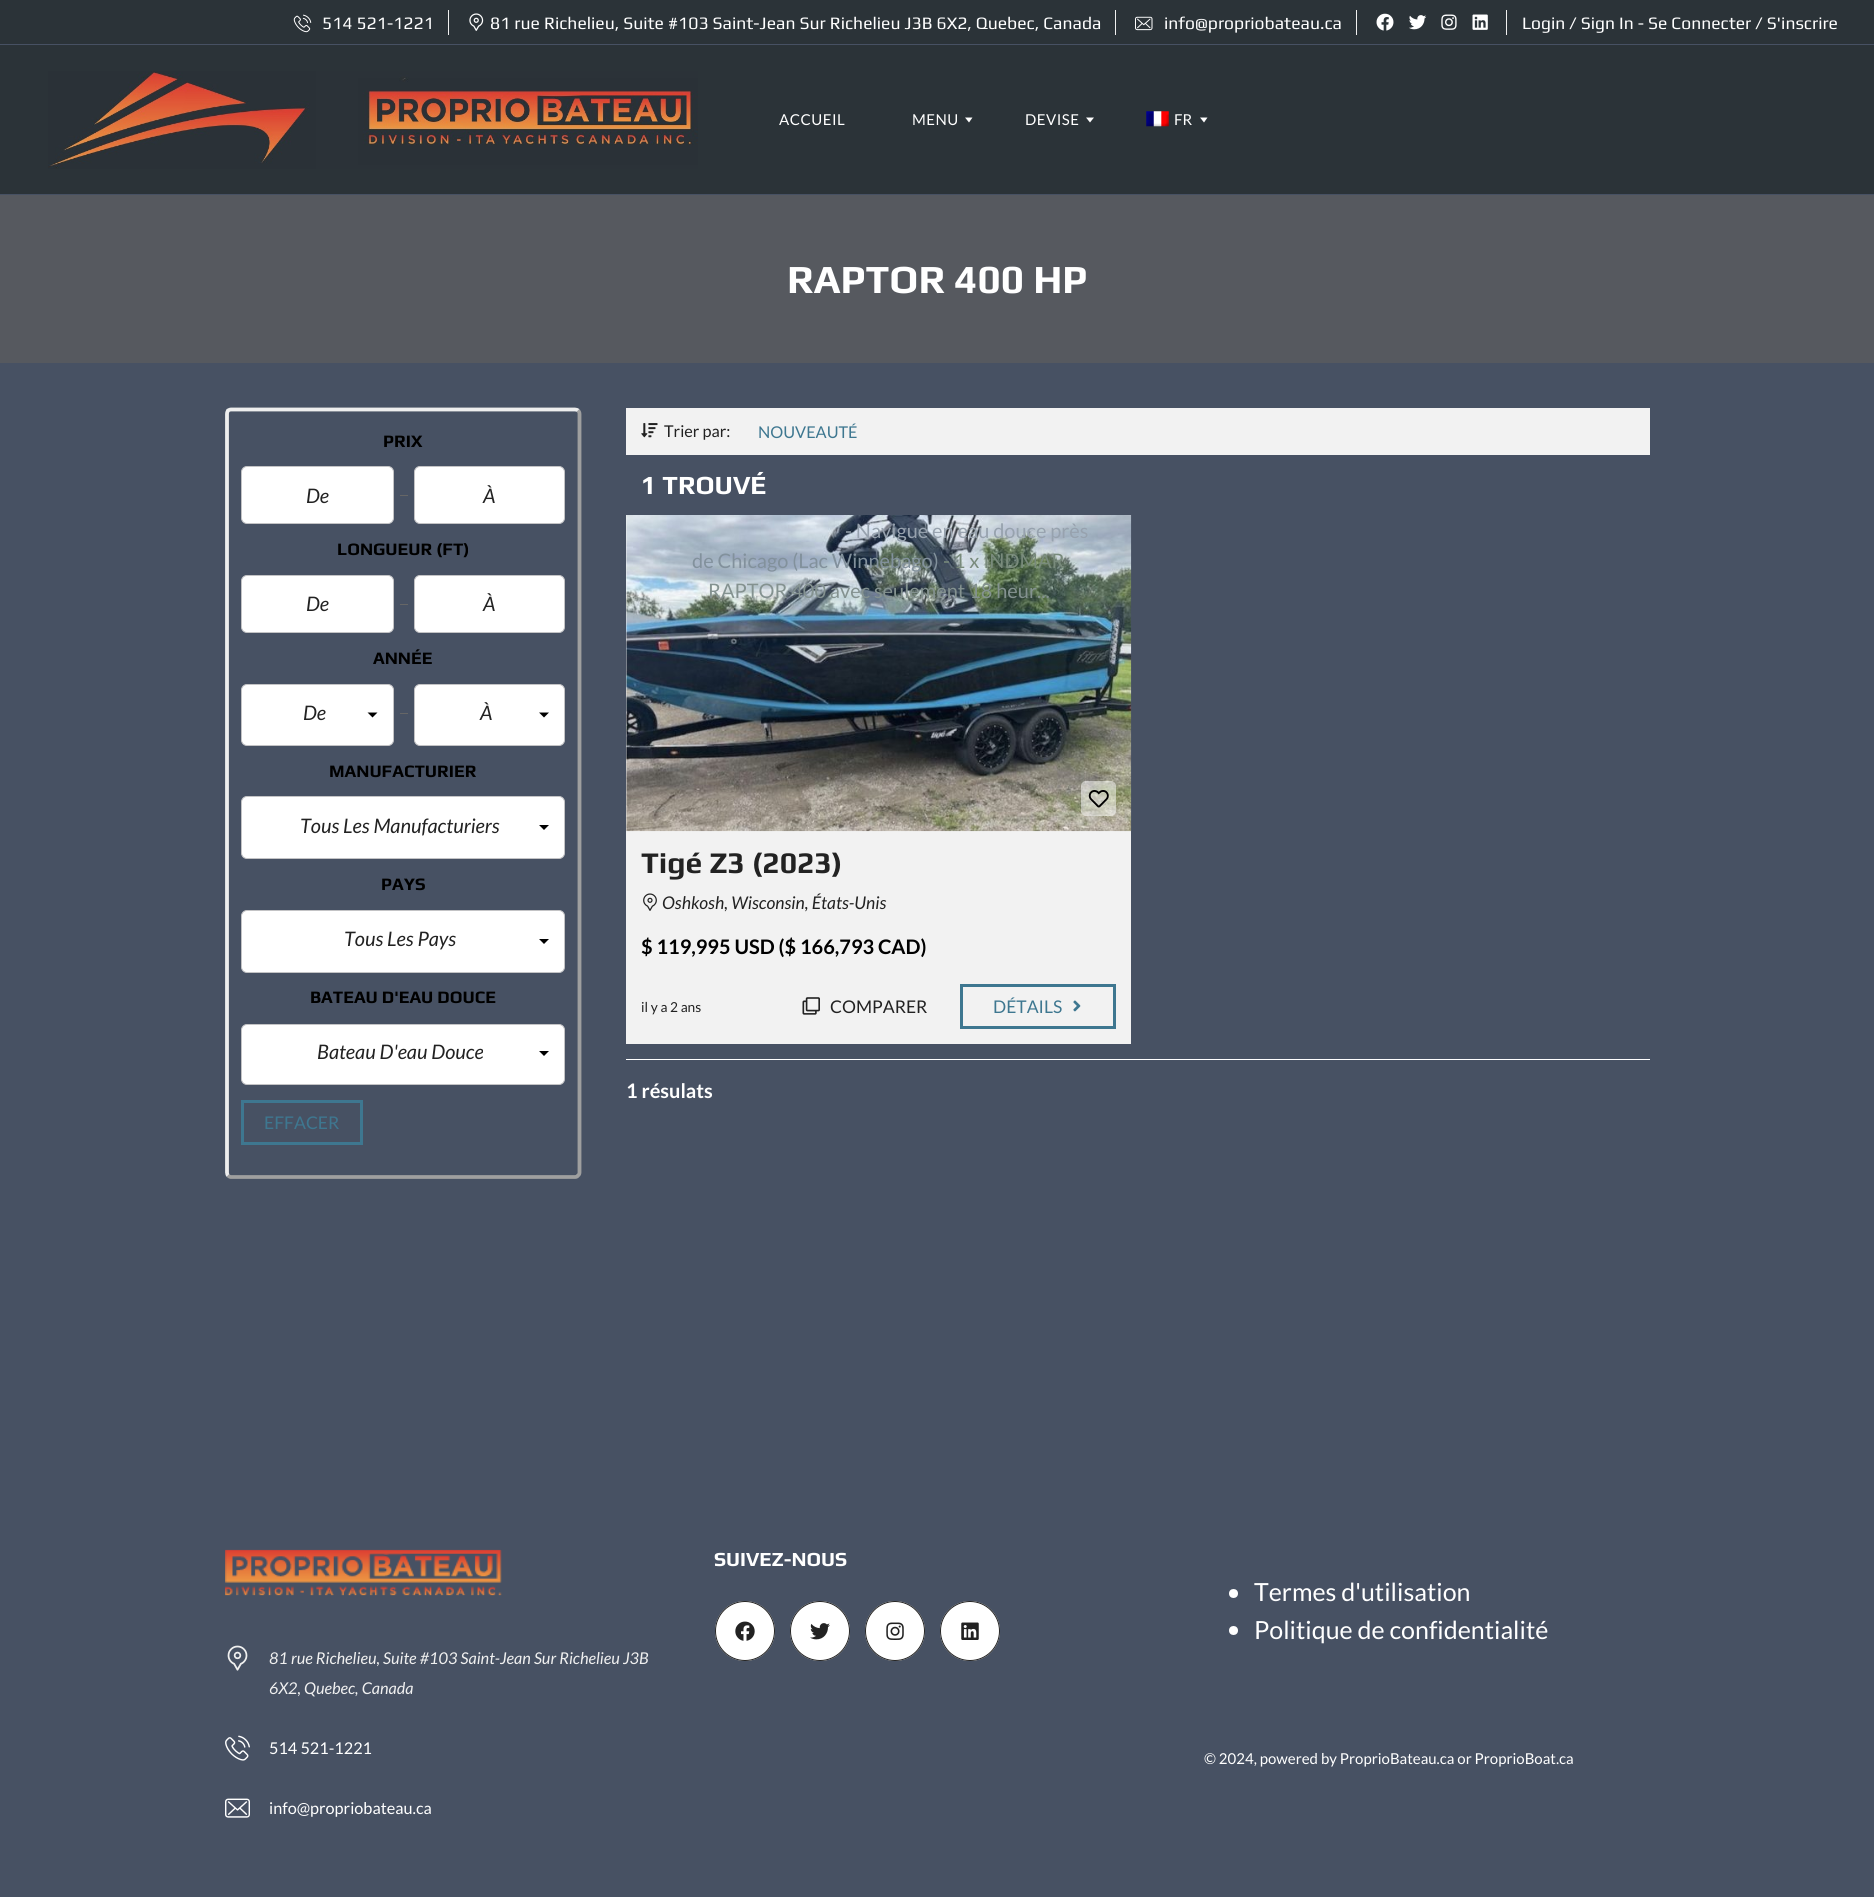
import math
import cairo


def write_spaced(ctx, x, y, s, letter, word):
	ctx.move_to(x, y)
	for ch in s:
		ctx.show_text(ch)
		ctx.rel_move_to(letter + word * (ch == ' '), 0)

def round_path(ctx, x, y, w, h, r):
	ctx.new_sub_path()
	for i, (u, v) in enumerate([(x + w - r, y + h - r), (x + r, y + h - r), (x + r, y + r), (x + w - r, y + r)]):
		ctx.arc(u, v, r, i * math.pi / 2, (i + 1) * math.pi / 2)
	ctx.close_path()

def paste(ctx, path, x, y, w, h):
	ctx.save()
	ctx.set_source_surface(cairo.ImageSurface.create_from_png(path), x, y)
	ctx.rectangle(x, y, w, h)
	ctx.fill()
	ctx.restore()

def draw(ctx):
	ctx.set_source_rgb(0.278, 0.318, 0.388)
	ctx.paint()
	ctx.set_source_rgb(0.169, 0.2, 0.22)
	ctx.rectangle(0, 0, 1874, 44)
	ctx.fill()
	paste(ctx, 'media/1.png', 293, 14, 19, 19)
	ctx.select_font_face('Play')
	ctx.set_font_size(17.5)
	ctx.set_source_rgb(1, 1, 1)
	ctx.move_to(322, 29)
	ctx.show_text('514 521-1221')
	ctx.set_source_rgb(0.941, 0.941, 0.941)
	ctx.rectangle(448, 10, 1, 25)
	ctx.fill()
	paste(ctx, 'media/2.png', 469, 13, 15, 18)
	ctx.set_source_rgb(1, 1, 1)
	ctx.move_to(490, 29)
	ctx.show_text('81 rue Richelieu, Suite #103 Saint-Jean Sur Richelieu J3B 6X2, Quebec, Canada')
	ctx.set_source_rgb(0.941, 0.941, 0.941)
	ctx.rectangle(1115, 10, 1, 25)
	ctx.fill()
	paste(ctx, 'media/3.png', 1135, 16, 18, 15)
	ctx.set_source_rgb(1, 1, 1)
	ctx.move_to(1164, 29)
	ctx.show_text('info@propriobateau.ca')
	ctx.set_source_rgb(0.941, 0.941, 0.941)
	ctx.rectangle(1356, 10, 1, 25)
	ctx.fill()
	paste(ctx, 'media/4.png', 1376, 13, 18, 18)
	paste(ctx, 'media/5.png', 1409, 15, 18, 15)
	paste(ctx, 'media/6.png', 1441, 14, 16, 16)
	paste(ctx, 'media/7.png', 1472, 14, 16, 16)
	ctx.rectangle(1506, 10, 1, 25)
	ctx.fill()
	ctx.set_source_rgb(1, 1, 1)
	ctx.move_to(1522, 29)
	ctx.show_text('Login / Sign In - Se Connecter / S\'inscrire')
	ctx.set_source_rgb(0.169, 0.2, 0.22)
	ctx.rectangle(0, 45, 1874, 149)
	ctx.fill()
	paste(ctx, 'media/8.png', 48, 71, 650, 98)
	ctx.select_font_face('Lato')
	ctx.set_font_size(15)
	ctx.set_source_rgb(1, 1, 1)
	write_spaced(ctx, 779, 125, 'ACCUEIL', 0.5, 0)
	write_spaced(ctx, 912, 125, 'MENU', 0.5, 0)
	ctx.new_path()
	ctx.move_to(965, 117.5)
	ctx.line_to(972.5, 117.5)
	ctx.line_to(969, 122.5)
	ctx.close_path()
	ctx.fill()
	write_spaced(ctx, 1025, 125, 'DEVISE', 0.5, 0)
	ctx.new_path()
	ctx.move_to(1086, 117.5)
	ctx.line_to(1094, 117.5)
	ctx.line_to(1090, 122.5)
	ctx.close_path()
	ctx.fill()
	paste(ctx, 'media/9.png', 1146, 111, 23, 16)
	ctx.move_to(1174, 125)
	ctx.show_text('FR')
	ctx.new_path()
	ctx.move_to(1200, 117.5)
	ctx.line_to(1207.5, 117.5)
	ctx.line_to(1204, 122.5)
	ctx.close_path()
	ctx.fill()
	ctx.set_source_rgb(0.337, 0.349, 0.373)
	ctx.rectangle(0, 195, 1874, 168)
	ctx.fill()
	ctx.select_font_face('Play', cairo.FONT_SLANT_NORMAL, cairo.FONT_WEIGHT_BOLD)
	ctx.set_font_size(40)
	ctx.set_source_rgb(1, 1, 1)
	ctx.move_to(787, 293)
	ctx.show_text('RAPTOR 400 HP')
	ctx.new_path()
	ctx.move_to(578, 410.5)
	ctx.curve_to(579, 411.5, 579.5, 412.5, 579.5, 414)
	ctx.line_to(579.5, 1172.5)
	ctx.curve_to(579.5, 1173.5, 579, 1175, 578, 1175.5)
	ctx.curve_to(577.5, 1176.5, 576, 1177, 575, 1177)
	ctx.line_to(231, 1177)
	ctx.curve_to(230, 1177, 229, 1176.5, 228, 1175.5)
	ctx.set_source_rgb(0.624, 0.624, 0.624)
	ctx.set_line_width(3.8)
	ctx.stroke()
	ctx.new_path()
	ctx.move_to(228, 1175.5)
	ctx.curve_to(227.5, 1175, 227, 1173.5, 227, 1172.5)
	ctx.line_to(227, 414)
	ctx.curve_to(227, 412.5, 227.5, 411.5, 228, 410.5)
	ctx.curve_to(229, 410, 230, 409.5, 231, 409.5)
	ctx.line_to(575, 409.5)
	ctx.curve_to(576, 409.5, 577.5, 410, 578, 410.5)
	ctx.set_source_rgb(0.933, 0.933, 0.933)
	ctx.stroke()
	ctx.set_font_size(17.5)
	ctx.set_source_rgb(0, 0, 0)
	ctx.move_to(383, 447)
	ctx.show_text('PRIX')
	ctx.set_source_rgb(1, 1, 1)
	round_path(ctx, 241.5, 466.5, 152, 57, 5.5)
	ctx.fill_preserve()
	ctx.set_source_rgb(0.765, 0.765, 0.773)
	ctx.set_line_width(1)
	ctx.stroke()
	ctx.select_font_face('Lato', cairo.FONT_SLANT_ITALIC)
	ctx.set_font_size(20)
	ctx.set_source_rgb(0.133, 0.133, 0.133)
	ctx.move_to(306, 503)
	ctx.show_text('De')
	ctx.set_source_rgb(0.4, 0.4, 0.4)
	ctx.rectangle(400, 495, 8, 1)
	ctx.fill()
	ctx.set_source_rgb(1, 1, 1)
	round_path(ctx, 414.5, 466.5, 150, 57, 5.5)
	ctx.fill_preserve()
	ctx.set_source_rgb(0.765, 0.765, 0.773)
	ctx.stroke()
	ctx.set_source_rgb(0.133, 0.133, 0.133)
	ctx.move_to(483, 503)
	ctx.show_text('À')
	ctx.select_font_face('Play', cairo.FONT_SLANT_NORMAL, cairo.FONT_WEIGHT_BOLD)
	ctx.set_font_size(17.5)
	ctx.set_source_rgb(0, 0, 0)
	ctx.move_to(337, 555)
	ctx.show_text('LONGUEUR (FT)')
	ctx.set_source_rgb(1, 1, 1)
	round_path(ctx, 241.5, 575.5, 152, 57, 5.5)
	ctx.fill_preserve()
	ctx.set_source_rgb(0.765, 0.765, 0.773)
	ctx.stroke()
	ctx.select_font_face('Lato', cairo.FONT_SLANT_ITALIC)
	ctx.set_font_size(20)
	ctx.set_source_rgb(0.133, 0.133, 0.133)
	ctx.move_to(306, 611)
	ctx.show_text('De')
	ctx.set_source_rgb(0.4, 0.4, 0.4)
	ctx.rectangle(400, 604, 8, 1)
	ctx.fill()
	ctx.set_source_rgb(1, 1, 1)
	round_path(ctx, 414.5, 575.5, 150, 57, 5.5)
	ctx.fill_preserve()
	ctx.set_source_rgb(0.765, 0.765, 0.773)
	ctx.stroke()
	ctx.set_source_rgb(0.133, 0.133, 0.133)
	ctx.move_to(483, 611)
	ctx.show_text('À')
	ctx.select_font_face('Play', cairo.FONT_SLANT_NORMAL, cairo.FONT_WEIGHT_BOLD)
	ctx.set_font_size(17.5)
	ctx.set_source_rgb(0, 0, 0)
	ctx.move_to(373, 664)
	ctx.show_text('ANNÉE')
	ctx.set_source_rgb(1, 1, 1)
	round_path(ctx, 241.5, 684.5, 152, 61, 5.5)
	ctx.fill_preserve()
	ctx.set_source_rgb(0.765, 0.765, 0.773)
	ctx.stroke()
	ctx.select_font_face('Lato', cairo.FONT_SLANT_ITALIC)
	ctx.set_font_size(20)
	ctx.set_source_rgb(0.133, 0.133, 0.133)
	ctx.move_to(303, 720)
	ctx.show_text('De')
	ctx.set_source_rgb(0, 0, 0)
	ctx.new_path()
	ctx.move_to(367.5, 712.5)
	ctx.line_to(377.5, 712.5)
	ctx.line_to(372.5, 717.5)
	ctx.close_path()
	ctx.fill()
	ctx.set_source_rgb(0.4, 0.4, 0.4)
	ctx.rectangle(400, 713, 8, 1)
	ctx.fill()
	ctx.set_source_rgb(1, 1, 1)
	round_path(ctx, 414.5, 684.5, 150, 61, 5.5)
	ctx.fill_preserve()
	ctx.set_source_rgb(0.765, 0.765, 0.773)
	ctx.stroke()
	ctx.set_source_rgb(0.133, 0.133, 0.133)
	ctx.move_to(480, 720)
	ctx.show_text('À')
	ctx.set_source_rgb(0, 0, 0)
	ctx.new_path()
	ctx.move_to(539, 712.5)
	ctx.line_to(549, 712.5)
	ctx.line_to(544, 717.5)
	ctx.close_path()
	ctx.fill()
	ctx.select_font_face('Play', cairo.FONT_SLANT_NORMAL, cairo.FONT_WEIGHT_BOLD)
	ctx.set_font_size(17.5)
	ctx.move_to(329, 777)
	ctx.show_text('MANUFACTURIER')
	ctx.set_source_rgb(1, 1, 1)
	round_path(ctx, 241.5, 796.5, 323, 62, 5.5)
	ctx.fill_preserve()
	ctx.set_source_rgb(0.765, 0.765, 0.773)
	ctx.stroke()
	ctx.select_font_face('Lato', cairo.FONT_SLANT_ITALIC)
	ctx.set_font_size(20)
	ctx.set_source_rgb(0.133, 0.133, 0.133)
	ctx.move_to(300, 833)
	ctx.show_text('Tous Les Manufacturiers')
	ctx.set_source_rgb(0, 0, 0)
	ctx.new_path()
	ctx.move_to(539, 825)
	ctx.line_to(549, 825)
	ctx.line_to(544, 830)
	ctx.close_path()
	ctx.fill()
	ctx.select_font_face('Play', cairo.FONT_SLANT_NORMAL, cairo.FONT_WEIGHT_BOLD)
	ctx.set_font_size(17.5)
	ctx.move_to(381, 890)
	ctx.show_text('PAYS')
	ctx.set_source_rgb(1, 1, 1)
	round_path(ctx, 241.5, 910.5, 323, 62, 5.5)
	ctx.fill_preserve()
	ctx.set_source_rgb(0.765, 0.765, 0.773)
	ctx.stroke()
	ctx.select_font_face('Lato', cairo.FONT_SLANT_ITALIC)
	ctx.set_font_size(20)
	ctx.set_source_rgb(0.133, 0.133, 0.133)
	ctx.move_to(344, 946)
	ctx.show_text('Tous Les Pays')
	ctx.set_source_rgb(0, 0, 0)
	ctx.new_path()
	ctx.move_to(539, 939)
	ctx.line_to(549, 939)
	ctx.line_to(544, 944)
	ctx.close_path()
	ctx.fill()
	ctx.select_font_face('Play', cairo.FONT_SLANT_NORMAL, cairo.FONT_WEIGHT_BOLD)
	ctx.set_font_size(17.5)
	ctx.move_to(310, 1003)
	ctx.show_text('BATEAU D\'EAU DOUCE')
	ctx.set_source_rgb(1, 1, 1)
	round_path(ctx, 241.5, 1024.5, 323, 60, 5.5)
	ctx.fill_preserve()
	ctx.set_source_rgb(0.765, 0.765, 0.773)
	ctx.stroke()
	ctx.select_font_face('Lato', cairo.FONT_SLANT_ITALIC)
	ctx.set_font_size(20)
	ctx.set_source_rgb(0.133, 0.133, 0.133)
	ctx.move_to(317, 1059)
	ctx.show_text('Bateau D\'eau Douce')
	ctx.set_source_rgb(0, 0, 0)
	ctx.new_path()
	ctx.move_to(539, 1051)
	ctx.line_to(549, 1051)
	ctx.line_to(544, 1056)
	ctx.close_path()
	ctx.fill()
	ctx.rectangle(242.5, 1101.5, 119, 42)
	ctx.set_source_rgb(0.243, 0.467, 0.565)
	ctx.set_line_width(3)
	ctx.stroke()
	ctx.select_font_face('Lato')
	ctx.set_font_size(17.5)
	ctx.move_to(264, 1129)
	ctx.show_text('EFFACER')
	ctx.set_source_rgb(0.949, 0.949, 0.949)
	ctx.rectangle(626, 408, 1024, 47)
	ctx.fill()
	paste(ctx, 'media/10.png', 641, 423, 17, 15)
	ctx.set_font_size(16.25)
	ctx.set_source_rgb(0.133, 0.133, 0.133)
	ctx.move_to(664, 437)
	ctx.show_text('Trier par:')
	ctx.set_source_rgb(0.243, 0.467, 0.565)
	ctx.move_to(758, 438)
	ctx.show_text('NOUVEAUTÉ')
	ctx.select_font_face('Play', cairo.FONT_SLANT_NORMAL, cairo.FONT_WEIGHT_BOLD)
	ctx.set_font_size(26.25)
	ctx.set_source_rgb(1, 1, 1)
	ctx.move_to(641, 494)
	ctx.show_text('1 TROUVÉ')
	ctx.set_source_rgb(0.949, 0.949, 0.949)
	ctx.rectangle(626, 515, 505, 529)
	ctx.fill()
	paste(ctx, 'media/11.png', 626, 515, 506, 317)
	ctx.select_font_face('Lato')
	ctx.set_font_size(20)
	ctx.set_source_rgb(0.592, 0.635, 0.682)
	ctx.move_to(845, 538)
	ctx.show_text('- Navigue en eau douce près')
	ctx.set_source_rgb(0.51, 0.569, 0.612)
	ctx.move_to(692, 568)
	ctx.show_text('de Chicago (Lac Winnebago)')
	ctx.set_source_rgb(0.475, 0.545, 0.486)
	ctx.move_to(943, 568)
	ctx.show_text('- 1 x INDMAR')
	ctx.set_source_rgb(0.518, 0.573, 0.565)
	ctx.move_to(708, 598)
	ctx.show_text('RAPTOR 400 avec seulement 18 heur...')
	ctx.set_source_rgba(1, 1, 1, 0.5)
	round_path(ctx, 1081, 781, 35, 35, 5)
	ctx.fill()
	paste(ctx, 'media/12.png', 1088, 790, 21, 18)
	ctx.select_font_face('Play', cairo.FONT_SLANT_NORMAL, cairo.FONT_WEIGHT_BOLD)
	ctx.set_font_size(30)
	ctx.set_source_rgb(0.133, 0.133, 0.133)
	ctx.move_to(641, 873)
	ctx.show_text('Tigé Z3 (2023)')
	paste(ctx, 'media/13.png', 643, 893, 14, 18)
	ctx.select_font_face('Lato', cairo.FONT_SLANT_ITALIC)
	ctx.set_font_size(17.5)
	ctx.move_to(662, 909)
	ctx.show_text('Oshkosh, Wisconsin, États-Unis')
	ctx.select_font_face('Lato', cairo.FONT_SLANT_NORMAL, cairo.FONT_WEIGHT_BOLD)
	ctx.set_font_size(20)
	ctx.set_source_rgb(0, 0, 0)
	ctx.move_to(641, 954)
	ctx.show_text('$ 119,995 USD ($ 166,793 CAD)')
	ctx.select_font_face('Lato')
	ctx.set_font_size(13.75)
	ctx.set_source_rgb(0.133, 0.133, 0.133)
	ctx.move_to(641, 1012)
	ctx.show_text('il y a 2 ans')
	paste(ctx, 'media/14.png', 802, 997, 18, 18)
	ctx.set_font_size(17.5)
	ctx.move_to(830, 1013)
	ctx.show_text('COMPARER')
	ctx.rectangle(961.5, 985.5, 153, 42)
	ctx.set_source_rgb(0.243, 0.467, 0.565)
	ctx.stroke()
	ctx.move_to(993, 1013)
	ctx.show_text('DÉTAILS')
	paste(ctx, 'media/15.png', 1073, 1000, 8, 12)
	ctx.set_source_rgb(1, 1, 1)
	ctx.rectangle(626, 1059, 1024, 1)
	ctx.fill()
	ctx.select_font_face('Lato', cairo.FONT_SLANT_NORMAL, cairo.FONT_WEIGHT_BOLD)
	ctx.set_font_size(20)
	ctx.move_to(626, 1098)
	ctx.show_text('1 résulats')
	ctx.select_font_face('Play', cairo.FONT_SLANT_NORMAL, cairo.FONT_WEIGHT_BOLD)
	ctx.move_to(714, 1566)
	ctx.show_text('SUIVEZ-NOUS')
	ctx.new_path()
	ctx.arc(745, 1631, 30, 0, 2 * math.pi)
	ctx.fill()
	paste(ctx, 'media/16.png', 735, 1621, 20, 20)
	ctx.arc(745, 1631, 29.5, 0, 2 * math.pi)
	ctx.set_source_rgb(0.133, 0.133, 0.133)
	ctx.set_line_width(1)
	ctx.stroke()
	ctx.set_source_rgb(1, 1, 1)
	ctx.arc(820, 1631, 30, 0, 2 * math.pi)
	ctx.fill()
	paste(ctx, 'media/17.png', 810, 1623, 20, 17)
	ctx.arc(820, 1631, 29.5, 0, 2 * math.pi)
	ctx.set_source_rgb(0.133, 0.133, 0.133)
	ctx.stroke()
	ctx.set_source_rgb(1, 1, 1)
	ctx.arc(895, 1631, 30, 0, 2 * math.pi)
	ctx.fill()
	paste(ctx, 'media/18.png', 886, 1622, 18, 18)
	ctx.arc(895, 1631, 29.5, 0, 2 * math.pi)
	ctx.set_source_rgb(0.133, 0.133, 0.133)
	ctx.stroke()
	ctx.set_source_rgb(1, 1, 1)
	ctx.arc(970, 1631, 30, 0, 2 * math.pi)
	ctx.fill()
	paste(ctx, 'media/19.png', 961, 1622, 18, 18)
	ctx.arc(970, 1631, 29.5, 0, 2 * math.pi)
	ctx.set_source_rgb(0.133, 0.133, 0.133)
	ctx.stroke()
	paste(ctx, 'media/20.png', 225, 1549, 277, 47)
	paste(ctx, 'media/21.png', 227, 1645, 21, 26)
	ctx.select_font_face('Lato', cairo.FONT_SLANT_ITALIC)
	ctx.set_font_size(16.25)
	ctx.set_source_rgb(0.941, 0.941, 0.941)
	ctx.move_to(269, 1664)
	ctx.show_text('81 rue Richelieu, Suite #103 Saint-Jean Sur Richelieu J3B')
	ctx.move_to(269, 1694)
	ctx.show_text('6X2, Quebec, Canada')
	paste(ctx, 'media/22.png', 225, 1735, 25, 26)
	ctx.select_font_face('Lato')
	ctx.set_source_rgb(1, 1, 1)
	ctx.move_to(269, 1754)
	ctx.show_text('514 521-1221')
	paste(ctx, 'media/23.png', 225, 1798, 25, 20)
	ctx.move_to(269, 1814)
	ctx.show_text('info@propriobateau.ca')
	ctx.new_path()
	ctx.arc(1233.5, 1593.5, 4.5, 0, 2 * math.pi)
	ctx.fill()
	ctx.set_font_size(25)
	ctx.move_to(1254, 1601)
	ctx.show_text('Termes d\'utilisation')
	ctx.new_path()
	ctx.arc(1233.5, 1630.5, 4.5, 0, 2 * math.pi)
	ctx.fill()
	ctx.move_to(1254, 1639)
	ctx.show_text('Politique de confidentialité')
	ctx.set_font_size(15)
	ctx.move_to(1204, 1764)
	ctx.show_text('© 2024, powered by ProprioBateau.ca or ProprioBoat.ca')


surface = cairo.ImageSurface(cairo.FORMAT_RGB24, 1874, 1897)
ctx = cairo.Context(surface)
options = cairo.FontOptions()
options.set_hint_metrics(cairo.HINT_METRICS_OFF)
options.set_hint_style(cairo.HINT_STYLE_NONE)
ctx.set_font_options(options)
ctx.set_miter_limit(4)
draw(ctx)
surface.write_to_png('image.png')
